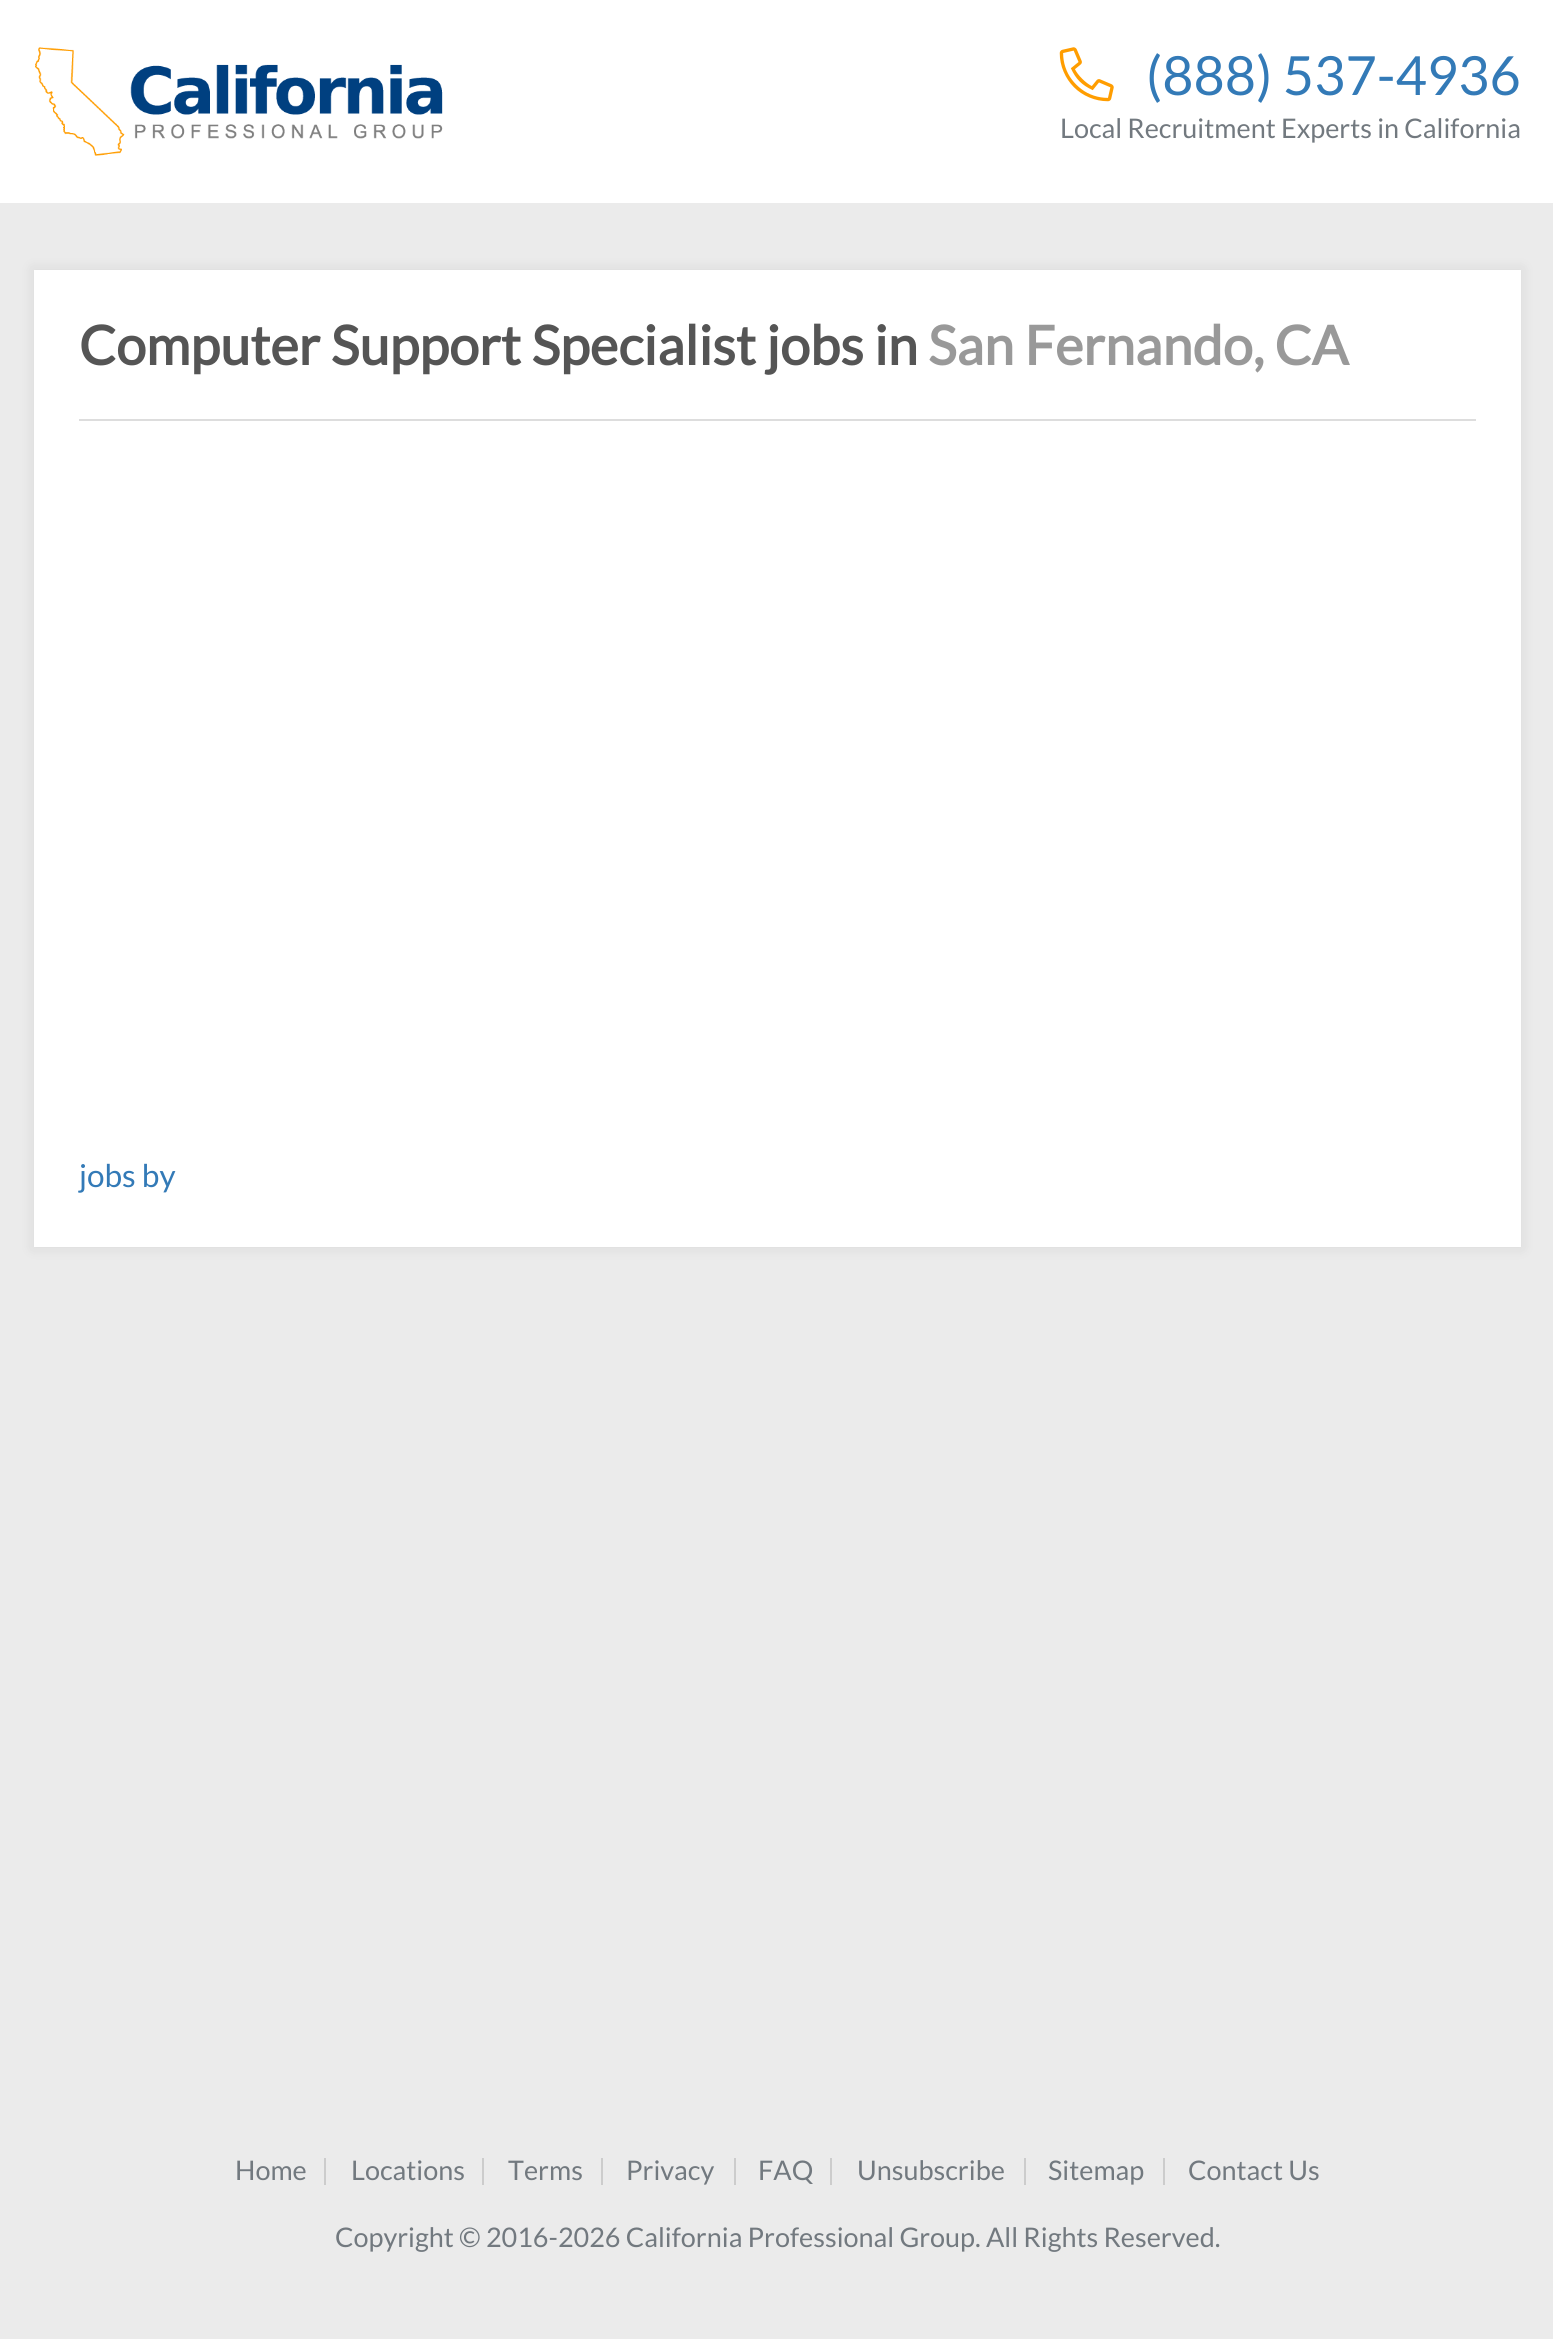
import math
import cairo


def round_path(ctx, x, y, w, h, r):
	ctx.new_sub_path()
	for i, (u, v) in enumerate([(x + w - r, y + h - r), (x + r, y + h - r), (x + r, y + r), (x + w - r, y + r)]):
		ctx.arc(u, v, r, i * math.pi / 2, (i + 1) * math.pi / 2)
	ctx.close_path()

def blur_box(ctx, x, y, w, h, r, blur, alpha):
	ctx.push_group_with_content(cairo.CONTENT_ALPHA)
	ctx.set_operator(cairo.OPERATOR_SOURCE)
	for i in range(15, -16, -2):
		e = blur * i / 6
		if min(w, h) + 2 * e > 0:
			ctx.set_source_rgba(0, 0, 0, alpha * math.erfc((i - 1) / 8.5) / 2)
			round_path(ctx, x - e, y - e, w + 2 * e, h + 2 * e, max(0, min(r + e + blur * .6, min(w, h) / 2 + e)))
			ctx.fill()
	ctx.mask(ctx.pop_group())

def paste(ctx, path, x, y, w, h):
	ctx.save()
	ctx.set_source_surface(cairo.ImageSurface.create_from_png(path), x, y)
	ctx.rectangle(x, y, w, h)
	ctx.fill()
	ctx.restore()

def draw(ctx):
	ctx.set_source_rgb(0.918, 0.918, 0.918)
	ctx.paint()
	ctx.set_source_rgb(1, 1, 1)
	ctx.rectangle(0, 0, 1553, 203)
	ctx.fill()
	paste(ctx, 'media/1.png', 35, 47, 408, 109)
	paste(ctx, 'media/2.png', 1059, 47, 55, 55)
	ctx.select_font_face('Lato')
	ctx.set_font_size(54)
	ctx.set_source_rgb(0.2, 0.478, 0.718)
	ctx.move_to(1146, 95)
	ctx.show_text('(888) 537-4936')
	ctx.set_font_size(27)
	ctx.set_source_rgb(0.447, 0.475, 0.498)
	ctx.move_to(1060, 138)
	ctx.show_text('Local Recruitment Experts in California')
	ctx.set_source_rgb(0, 0, 0)
	blur_box(ctx, 32, 268, 1491, 981, 0, 7, 0.07)
	ctx.set_source_rgb(1, 1, 1)
	ctx.rectangle(34, 270, 1487, 977)
	ctx.fill()
	ctx.select_font_face('Lato', cairo.FONT_SLANT_NORMAL, cairo.FONT_WEIGHT_BOLD)
	ctx.set_font_size(54)
	ctx.set_source_rgb(0.333, 0.333, 0.333)
	ctx.move_to(79, 365)
	ctx.show_text('Computer Support Specialist jobs in')
	ctx.set_source_rgb(0.6, 0.6, 0.6)
	ctx.move_to(928, 365)
	ctx.show_text('San Fernando, CA')
	ctx.set_source_rgb(0.867, 0.867, 0.867)
	ctx.rectangle(79, 419, 1397, 2)
	ctx.fill()
	ctx.select_font_face('Lato')
	ctx.set_font_size(31.5)
	ctx.set_source_rgb(0.2, 0.478, 0.718)
	ctx.move_to(79, 1187)
	ctx.show_text('jobs by')
	ctx.set_source_rgb(0.8, 0.8, 0.8)
	ctx.rectangle(324, 2158, 2, 27)
	ctx.fill()
	ctx.set_font_size(27)
	ctx.set_source_rgb(0.447, 0.475, 0.498)
	ctx.move_to(235, 2180)
	ctx.show_text('Home')
	ctx.set_source_rgb(0.8, 0.8, 0.8)
	ctx.rectangle(482, 2158, 2, 27)
	ctx.fill()
	ctx.set_source_rgb(0.447, 0.475, 0.498)
	ctx.move_to(351, 2180)
	ctx.show_text('Locations')
	ctx.set_source_rgb(0.8, 0.8, 0.8)
	ctx.rectangle(601, 2158, 2, 27)
	ctx.fill()
	ctx.set_source_rgb(0.447, 0.475, 0.498)
	ctx.move_to(508, 2180)
	ctx.show_text('Terms')
	ctx.set_source_rgb(0.8, 0.8, 0.8)
	ctx.rectangle(734, 2158, 2, 27)
	ctx.fill()
	ctx.set_source_rgb(0.447, 0.475, 0.498)
	ctx.move_to(626, 2180)
	ctx.show_text('Privacy')
	ctx.set_source_rgb(0.8, 0.8, 0.8)
	ctx.rectangle(830, 2158, 2, 27)
	ctx.fill()
	ctx.set_source_rgb(0.447, 0.475, 0.498)
	ctx.move_to(758, 2180)
	ctx.show_text('FAQ')
	ctx.set_source_rgb(0.8, 0.8, 0.8)
	ctx.rectangle(1024, 2158, 2, 27)
	ctx.fill()
	ctx.set_source_rgb(0.447, 0.475, 0.498)
	ctx.move_to(857, 2180)
	ctx.show_text('Unsubscribe')
	ctx.set_source_rgb(0.8, 0.8, 0.8)
	ctx.rectangle(1163, 2158, 2, 27)
	ctx.fill()
	ctx.set_source_rgb(0.447, 0.475, 0.498)
	for x, y, s in [
		(1048, 2180, 'Sitemap'),
		(1188, 2180, 'Contact Us'),
		(335, 2247, 'Copyright © 2016-2026 California Professional Group. All Rights Reserved.'),
	]:
		ctx.move_to(x, y)
		ctx.show_text(s)


surface = cairo.ImageSurface(cairo.FORMAT_RGB24, 1553, 2339)
ctx = cairo.Context(surface)
options = cairo.FontOptions()
options.set_hint_metrics(cairo.HINT_METRICS_OFF)
options.set_hint_style(cairo.HINT_STYLE_NONE)
ctx.set_font_options(options)
ctx.set_miter_limit(4)
draw(ctx)
surface.write_to_png('image.png')
